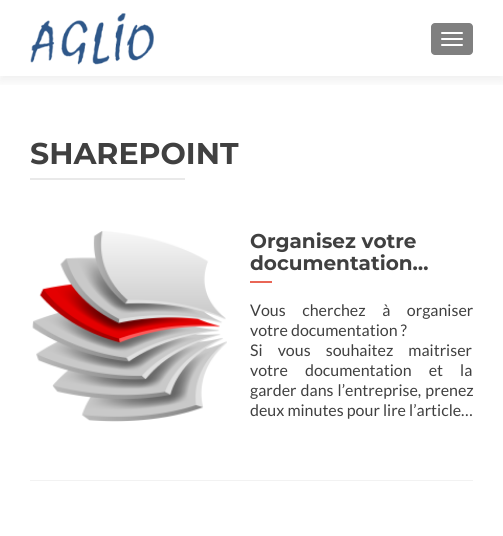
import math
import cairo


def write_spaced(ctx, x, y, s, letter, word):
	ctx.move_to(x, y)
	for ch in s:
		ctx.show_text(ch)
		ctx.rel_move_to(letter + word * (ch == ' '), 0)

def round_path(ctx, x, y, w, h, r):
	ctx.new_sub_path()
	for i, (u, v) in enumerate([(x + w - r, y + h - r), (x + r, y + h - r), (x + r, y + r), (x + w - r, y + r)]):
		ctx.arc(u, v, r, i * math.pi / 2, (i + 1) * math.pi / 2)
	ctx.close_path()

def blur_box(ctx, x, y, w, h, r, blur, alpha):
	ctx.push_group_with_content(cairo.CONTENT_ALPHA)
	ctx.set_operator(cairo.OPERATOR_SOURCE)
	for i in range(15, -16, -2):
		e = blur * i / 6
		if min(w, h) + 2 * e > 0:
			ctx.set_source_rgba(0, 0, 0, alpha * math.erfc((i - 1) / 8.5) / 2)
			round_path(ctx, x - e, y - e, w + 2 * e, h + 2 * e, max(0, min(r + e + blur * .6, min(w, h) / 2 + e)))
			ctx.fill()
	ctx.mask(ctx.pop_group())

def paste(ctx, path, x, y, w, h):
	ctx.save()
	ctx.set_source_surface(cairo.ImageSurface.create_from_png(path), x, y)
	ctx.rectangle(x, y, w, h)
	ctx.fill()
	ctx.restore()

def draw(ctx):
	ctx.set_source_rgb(1, 1, 1)
	ctx.paint()
	ctx.save()
	ctx.rectangle(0, 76, 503, 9)
	ctx.clip()
	ctx.set_source_rgb(0.196, 0.196, 0.196)
	blur_box(ctx, 0, 5, 503, 76, 0, 5.5, 0.08)
	ctx.restore()
	paste(ctx, 'media/1.png', 30, 13, 124, 52)
	ctx.set_source_rgb(0.502, 0.502, 0.502)
	round_path(ctx, 431, 23, 42, 32, 4)
	ctx.fill()
	ctx.set_source_rgb(1, 1, 1)
	round_path(ctx, 441, 32, 22, 2, 1)
	ctx.fill()
	round_path(ctx, 441, 38, 22, 2, 1)
	ctx.fill()
	round_path(ctx, 441, 44, 22, 2, 1)
	ctx.fill()
	ctx.select_font_face('Montserrat Thin')
	ctx.set_font_size(30)
	ctx.set_source_rgb(0.251, 0.251, 0.251)
	ctx.move_to(30, 164)
	ctx.show_text('SHAREPOINT')
	ctx.set_source_rgb(0.914, 0.914, 0.914)
	ctx.rectangle(30, 178, 155, 2)
	ctx.fill()
	ctx.set_source_rgb(0.949, 0.949, 0.949)
	ctx.rectangle(30, 480, 443, 1)
	ctx.fill()
	paste(ctx, 'media/2.png', 32, 231, 195, 191)
	ctx.set_font_size(20)
	ctx.set_source_rgb(0.251, 0.251, 0.251)
	ctx.move_to(250, 248)
	ctx.show_text('Organisez votre')
	ctx.move_to(250, 270)
	ctx.show_text('documentation…')
	ctx.set_source_rgb(0.914, 0.4, 0.337)
	ctx.rectangle(250, 281, 22, 2)
	ctx.fill()
	ctx.select_font_face('Lato')
	ctx.set_font_size(16)
	ctx.set_source_rgb(0.251, 0.251, 0.251)
	write_spaced(ctx, 250, 316, 'Vous cherchez à organiser', 0, 13.5)
	ctx.move_to(250, 336)
	ctx.show_text('votre documentation ?')
	write_spaced(ctx, 250, 356, 'Si vous souhaitez maitriser', 0, 12)
	write_spaced(ctx, 250, 376, 'votre documentation et la', 0, 14)
	write_spaced(ctx, 250, 396, 'garder dans l’entreprise, prenez', 0, 1)
	ctx.move_to(250, 416)
	ctx.show_text('deux minutes pour lire l’article…')


surface = cairo.ImageSurface(cairo.FORMAT_RGB24, 503, 536)
ctx = cairo.Context(surface)
options = cairo.FontOptions()
options.set_hint_metrics(cairo.HINT_METRICS_OFF)
options.set_hint_style(cairo.HINT_STYLE_NONE)
ctx.set_font_options(options)
ctx.set_miter_limit(4)
draw(ctx)
surface.write_to_png('image.png')
